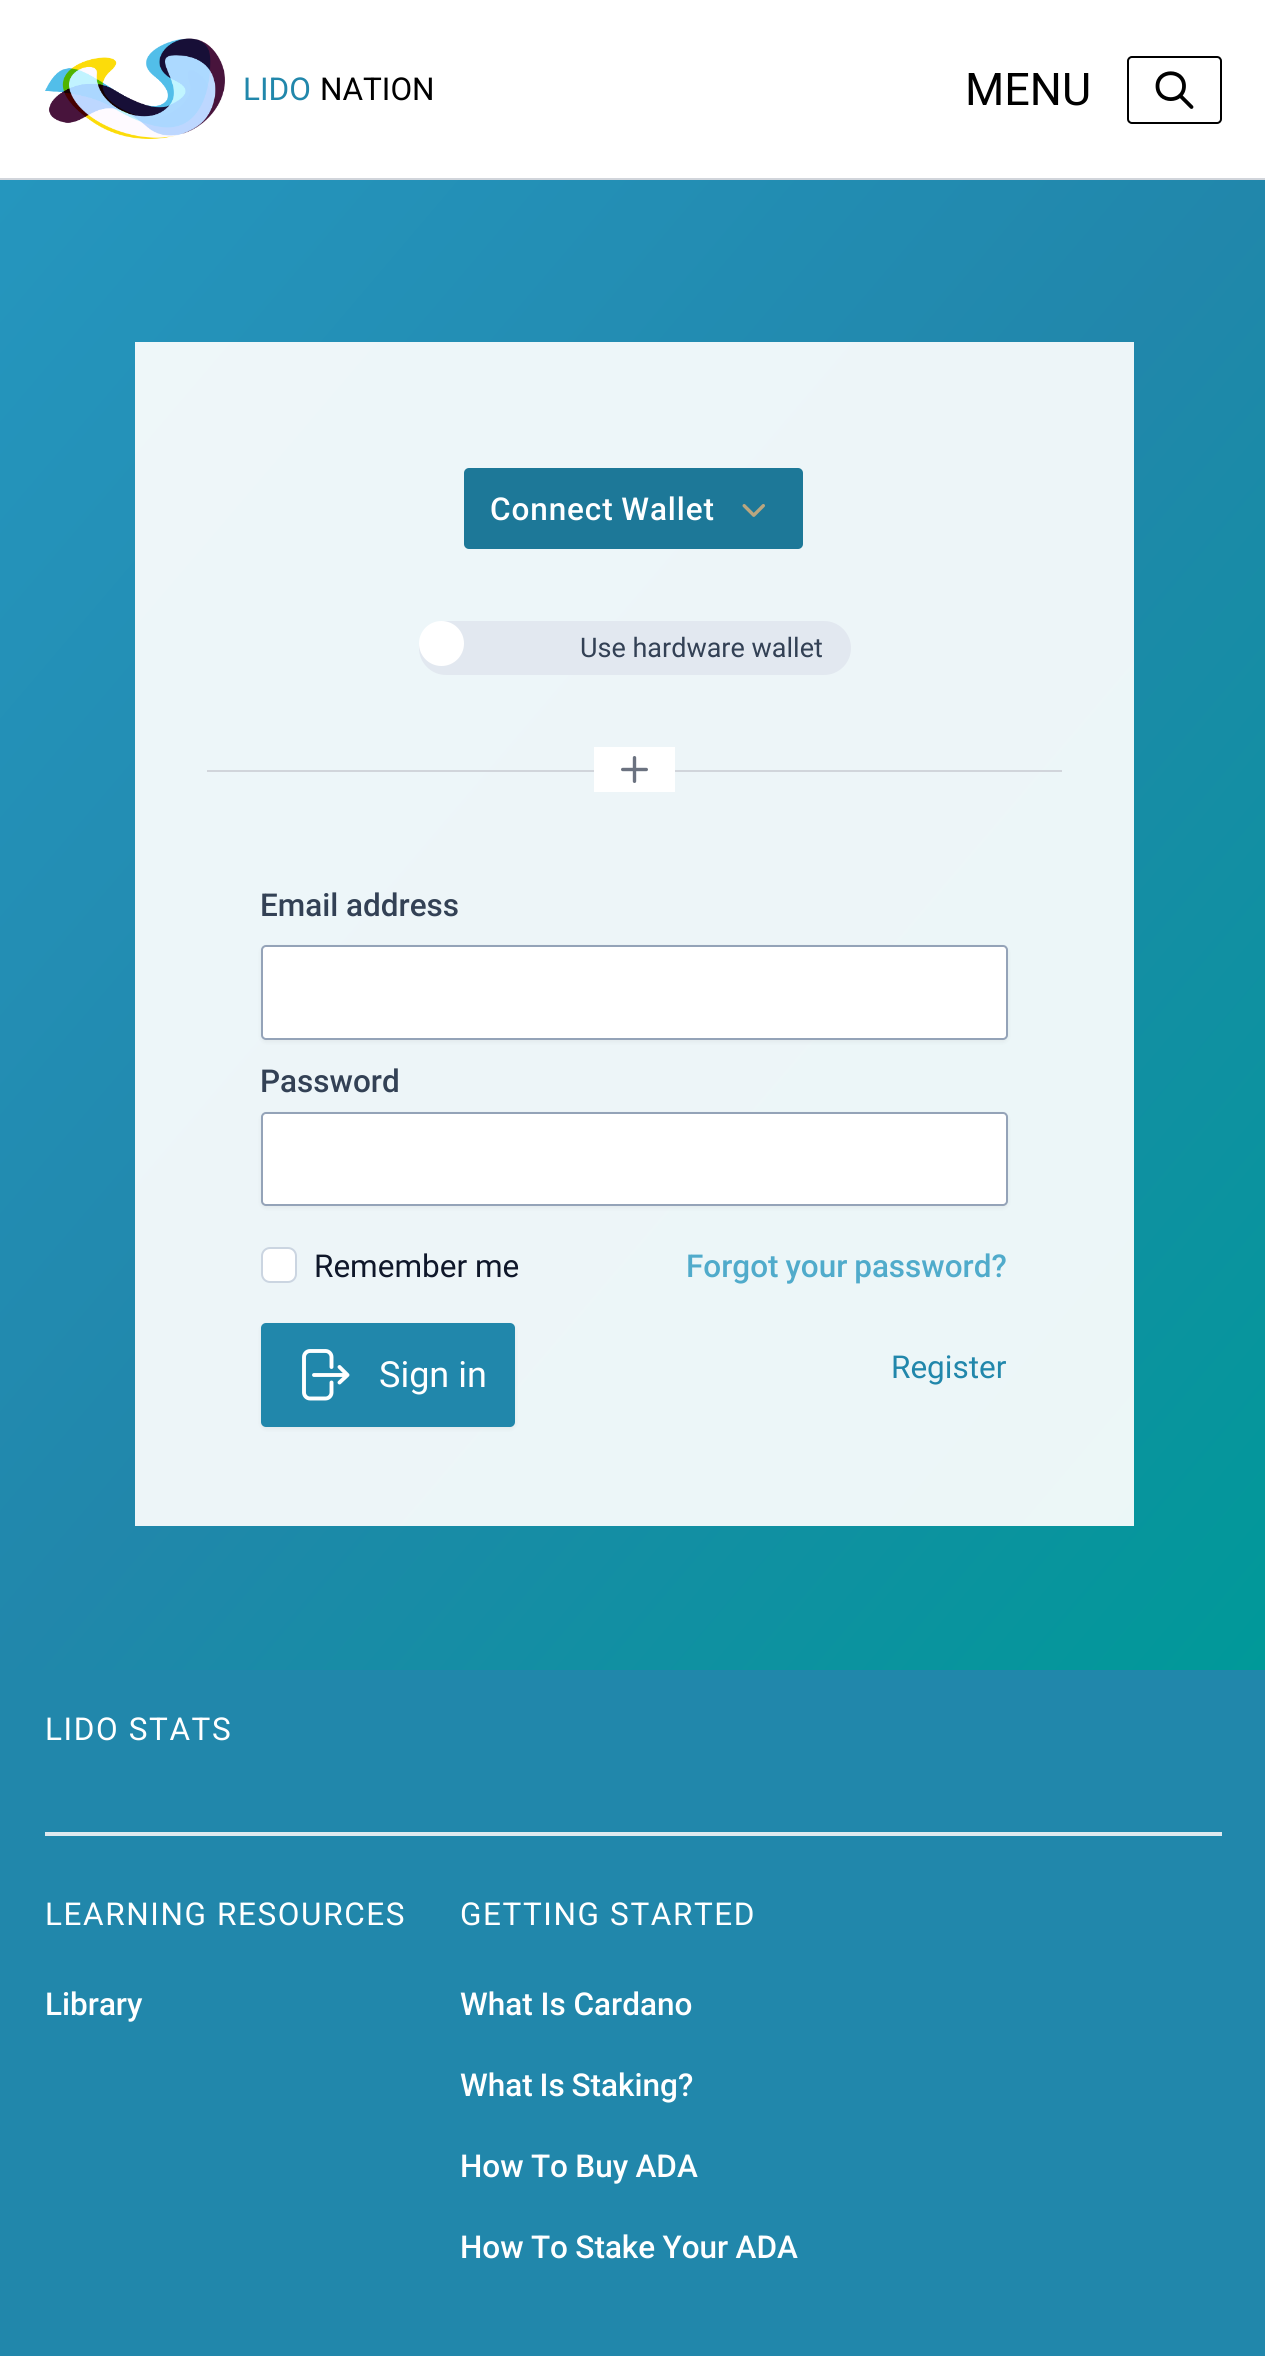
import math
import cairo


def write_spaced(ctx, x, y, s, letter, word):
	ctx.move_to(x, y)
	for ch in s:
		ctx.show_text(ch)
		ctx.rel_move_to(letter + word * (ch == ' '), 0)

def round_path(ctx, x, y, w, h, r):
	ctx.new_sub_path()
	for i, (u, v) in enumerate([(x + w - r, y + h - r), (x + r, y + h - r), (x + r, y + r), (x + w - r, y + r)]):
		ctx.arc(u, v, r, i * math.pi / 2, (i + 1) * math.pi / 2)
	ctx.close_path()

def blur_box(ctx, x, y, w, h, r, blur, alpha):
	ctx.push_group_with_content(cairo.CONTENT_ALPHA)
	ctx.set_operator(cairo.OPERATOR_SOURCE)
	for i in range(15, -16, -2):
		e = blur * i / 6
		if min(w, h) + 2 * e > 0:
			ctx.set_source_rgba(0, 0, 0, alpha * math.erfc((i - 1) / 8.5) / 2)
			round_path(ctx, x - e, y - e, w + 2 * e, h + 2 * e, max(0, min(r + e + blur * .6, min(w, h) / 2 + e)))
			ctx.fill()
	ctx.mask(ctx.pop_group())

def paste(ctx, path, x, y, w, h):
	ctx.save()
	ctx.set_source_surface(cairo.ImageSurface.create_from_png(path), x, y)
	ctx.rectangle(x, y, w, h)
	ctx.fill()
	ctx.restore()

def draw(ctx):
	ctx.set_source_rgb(1, 1, 1)
	ctx.paint()
	ctx.set_source_rgb(0.82, 0.835, 0.859)
	ctx.rectangle(0, 178, 1265, 2)
	ctx.fill()
	paste(ctx, 'media/1.png', 45, 38, 180, 101)
	ctx.select_font_face('Roboto')
	ctx.set_font_size(31.5)
	ctx.set_source_rgb(0.129, 0.529, 0.671)
	ctx.move_to(243, 100)
	ctx.show_text('LIDO')
	ctx.set_source_rgb(0, 0, 0)
	ctx.move_to(320, 100)
	ctx.show_text('NATION')
	ctx.set_font_size(45)
	ctx.move_to(965, 105)
	ctx.show_text('MENU')
	round_path(ctx, 1128, 57, 93, 66, 4)
	ctx.stroke()
	ctx.new_path()
	ctx.move_to(1191.5, 107)
	ctx.line_to(1180, 95.5)
	ctx.move_to(1184, 86)
	ctx.curve_to(1184, 103.5, 1157.5, 103.5, 1157.5, 86)
	ctx.curve_to(1157.5, 69, 1184, 69, 1184, 86)
	ctx.close_path()
	ctx.set_line_width(3.8)
	ctx.set_line_cap(cairo.LINE_CAP_ROUND)
	ctx.set_line_join(cairo.LINE_JOIN_ROUND)
	ctx.stroke()
	gradient = cairo.LinearGradient(-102, 300, 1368, 1550)
	gradient.add_color_stop_rgba(0, 0.145, 0.588, 0.745, 1)
	gradient.add_color_stop_rgba(0.5, 0.129, 0.529, 0.671, 1)
	gradient.add_color_stop_rgba(1, 0, 0.6, 0.6, 1)
	ctx.set_source(gradient)
	ctx.rectangle(0, 180, 1265, 1490)
	ctx.fill()
	gradient = cairo.LinearGradient(-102, 300, 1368, 1550)
	gradient.add_color_stop_rgba(0, 0.933, 0.969, 0.98, 1)
	gradient.add_color_stop_rgba(0.5, 0.929, 0.961, 0.973, 1)
	gradient.add_color_stop_rgba(1, 0.922, 0.969, 0.969, 1)
	ctx.set_source(gradient)
	ctx.rectangle(135, 342, 999, 1184)
	ctx.fill()
	ctx.set_source_rgb(0.114, 0.471, 0.596)
	round_path(ctx, 464, 468, 339, 81, 5)
	ctx.fill()
	ctx.select_font_face('Roboto Medium')
	ctx.set_font_size(31.5)
	ctx.set_source_rgb(1, 1, 1)
	write_spaced(ctx, 490, 520, 'Connect Wallet', 0.9, -1)
	paste(ctx, 'media/2.png', 742, 504, 23, 13)
	ctx.set_source_rgb(0.886, 0.91, 0.941)
	round_path(ctx, 419, 621, 432, 54, 27)
	ctx.fill()
	ctx.set_source_rgb(1, 1, 1)
	ctx.arc(441.5, 643.5, 22.5, 0, 2 * math.pi)
	ctx.fill()
	ctx.select_font_face('Roboto')
	ctx.set_font_size(27)
	ctx.set_source_rgb(0.2, 0.255, 0.333)
	ctx.move_to(580, 657)
	ctx.show_text('Use hardware wallet')
	ctx.set_source_rgb(0.82, 0.835, 0.859)
	ctx.rectangle(207, 770, 855, 2)
	ctx.fill()
	ctx.set_source_rgb(1, 1, 1)
	ctx.rectangle(594, 747, 81, 45)
	ctx.fill()
	paste(ctx, 'media/3.png', 621, 756, 27, 27)
	ctx.select_font_face('Roboto Medium')
	ctx.set_font_size(31.5)
	ctx.set_source_rgb(0.2, 0.255, 0.333)
	ctx.move_to(260, 916)
	ctx.show_text('Email address')
	ctx.set_source_rgb(0, 0, 0)
	blur_box(ctx, 261, 947, 747, 95, 5, 2, 0.05)
	ctx.set_source_rgb(1, 1, 1)
	round_path(ctx, 262, 946, 745, 93, 4)
	ctx.fill_preserve()
	ctx.set_source_rgb(0.58, 0.639, 0.722)
	ctx.set_line_width(2)
	ctx.set_line_cap(cairo.LINE_CAP_BUTT)
	ctx.set_line_join(cairo.LINE_JOIN_MITER)
	ctx.stroke()
	ctx.set_source_rgb(0.2, 0.255, 0.333)
	ctx.move_to(260, 1092)
	ctx.show_text('Password')
	ctx.set_source_rgb(0, 0, 0)
	blur_box(ctx, 261, 1114, 747, 94, 5, 2, 0.05)
	ctx.set_source_rgb(1, 1, 1)
	round_path(ctx, 262, 1113, 745, 92, 4)
	ctx.fill_preserve()
	ctx.set_source_rgb(0.58, 0.639, 0.722)
	ctx.stroke()
	ctx.set_source_rgb(1, 1, 1)
	round_path(ctx, 262, 1248, 34, 34, 8)
	ctx.fill_preserve()
	ctx.set_source_rgb(0.796, 0.835, 0.882)
	ctx.stroke()
	ctx.select_font_face('Roboto')
	ctx.set_source_rgb(0.059, 0.09, 0.165)
	ctx.move_to(314, 1277)
	ctx.show_text('Remember me')
	ctx.select_font_face('Roboto Medium')
	ctx.set_source_rgb(0.314, 0.671, 0.796)
	write_spaced(ctx, 686, 1277, 'Forgot your password?', 0, -1)
	ctx.set_source_rgb(0, 0, 0)
	blur_box(ctx, 261, 1325, 254, 104, 5, 2, 0.05)
	ctx.set_source_rgb(0.129, 0.529, 0.671)
	round_path(ctx, 261, 1323, 254, 104, 5)
	ctx.fill()
	ctx.new_path()
	ctx.move_to(331.5, 1367)
	ctx.line_to(331.5, 1357)
	ctx.curve_to(331.5, 1354, 329, 1351, 325.5, 1351)
	ctx.line_to(310, 1351)
	ctx.curve_to(306.5, 1351, 304, 1354, 304, 1357)
	ctx.line_to(304, 1392.5)
	ctx.curve_to(304, 1395.5, 306.5, 1398.5, 310, 1398.5)
	ctx.line_to(325.5, 1398.5)
	ctx.curve_to(329, 1398.5, 331.5, 1395.5, 331.5, 1392.5)
	ctx.line_to(331.5, 1382.5)
	ctx.move_to(339.5, 1382.5)
	ctx.line_to(347.5, 1375)
	ctx.move_to(347.5, 1375)
	ctx.line_to(339.5, 1367)
	ctx.move_to(347.5, 1375)
	ctx.line_to(314, 1375)
	ctx.set_source_rgb(1, 1, 1)
	ctx.set_line_width(3.9)
	ctx.set_line_cap(cairo.LINE_CAP_ROUND)
	ctx.set_line_join(cairo.LINE_JOIN_ROUND)
	ctx.stroke()
	ctx.select_font_face('Roboto')
	ctx.set_font_size(36)
	ctx.move_to(379, 1387)
	ctx.show_text('Sign in')
	ctx.set_font_size(31.5)
	ctx.set_source_rgb(0.129, 0.529, 0.671)
	ctx.move_to(891, 1378)
	ctx.show_text('Register')
	ctx.rectangle(0, 1670, 1265, 686)
	ctx.fill()
	ctx.set_source_rgb(0.871, 0.914, 0.937)
	ctx.rectangle(45, 1832, 1177, 4)
	ctx.fill()
	ctx.set_source_rgb(1, 1, 1)
	write_spaced(ctx, 45, 1740, 'LIDO STATS', 1.6, 0)
	write_spaced(ctx, 45, 1925, 'LEARNING RESOURCES', 1.6, 0)
	ctx.select_font_face('Roboto Medium')
	ctx.move_to(45, 2015)
	ctx.show_text('Library')
	ctx.select_font_face('Roboto')
	write_spaced(ctx, 460, 1925, 'GETTING STARTED', 1.6, 0)
	ctx.select_font_face('Roboto Medium')
	ctx.move_to(460, 2015)
	ctx.show_text('What Is Cardano')
	write_spaced(ctx, 460, 2096, 'What Is Staking?', 0, -1)
	write_spaced(ctx, 460, 2177, 'How To Buy ADA', 0, -0.5)
	write_spaced(ctx, 460, 2258, 'How To Stake Your ADA', 0, -0.5)


surface = cairo.ImageSurface(cairo.FORMAT_RGB24, 1265, 2356)
ctx = cairo.Context(surface)
options = cairo.FontOptions()
options.set_hint_metrics(cairo.HINT_METRICS_OFF)
options.set_hint_style(cairo.HINT_STYLE_NONE)
ctx.set_font_options(options)
ctx.set_miter_limit(4)
draw(ctx)
surface.write_to_png('image.png')
